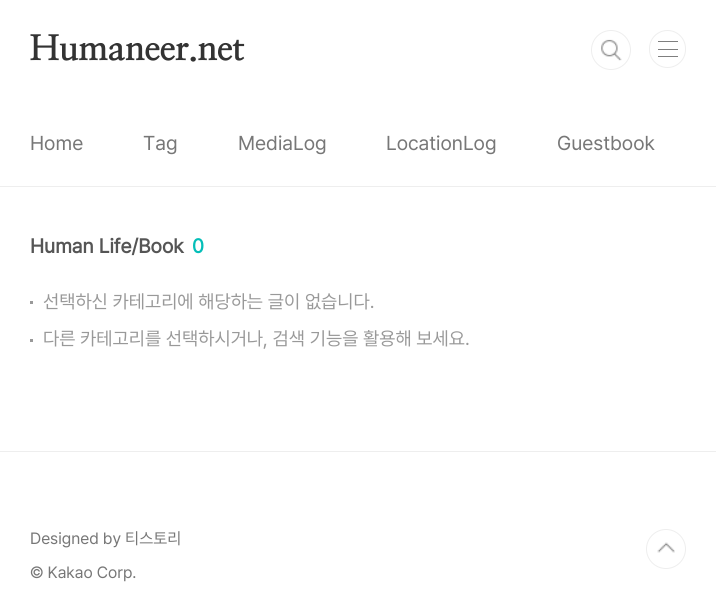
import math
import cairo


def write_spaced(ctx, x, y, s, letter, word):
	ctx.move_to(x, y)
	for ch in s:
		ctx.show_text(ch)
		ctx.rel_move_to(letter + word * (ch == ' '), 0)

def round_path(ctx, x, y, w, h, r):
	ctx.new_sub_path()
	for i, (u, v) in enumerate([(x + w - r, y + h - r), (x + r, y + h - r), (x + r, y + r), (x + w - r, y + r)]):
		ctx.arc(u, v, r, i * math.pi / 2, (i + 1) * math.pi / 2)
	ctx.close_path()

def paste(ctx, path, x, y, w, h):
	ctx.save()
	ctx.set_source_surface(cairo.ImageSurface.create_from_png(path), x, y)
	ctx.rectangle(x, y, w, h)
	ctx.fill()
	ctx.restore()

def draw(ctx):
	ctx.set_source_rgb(1, 1, 1)
	ctx.paint()
	ctx.set_source_rgb(0.933, 0.933, 0.933)
	ctx.rectangle(0, 186, 716, 1)
	ctx.fill()
	ctx.select_font_face('NanumMyeongjo ExtraBold')
	ctx.set_font_size(35)
	ctx.set_source_rgb(0.2, 0.2, 0.2)
	write_spaced(ctx, 30, 60, 'Humaneer.net', -0.25, 0)
	round_path(ctx, 593.5, 31.5, 36, 37, 18)
	ctx.set_source_rgb(0.933, 0.933, 0.933)
	ctx.set_line_width(1)
	ctx.stroke()
	ctx.set_source_rgb(1, 1, 1)
	ctx.arc(611, 50, 20, 0, 2 * math.pi)
	ctx.fill()
	paste(ctx, 'media/1.png', 601, 39, 21, 22)
	ctx.arc(611, 50, 19.5, 0, 2 * math.pi)
	ctx.set_source_rgb(0.933, 0.933, 0.933)
	ctx.stroke()
	round_path(ctx, 649.5, 30.5, 36, 37, 18)
	ctx.stroke()
	ctx.set_source_rgb(0.498, 0.498, 0.498)
	ctx.rectangle(658, 41, 20, 1)
	ctx.rectangle(658, 49, 20, 1)
	ctx.rectangle(658, 56, 20, 1)
	ctx.fill()
	ctx.select_font_face('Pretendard')
	ctx.set_font_size(20)
	ctx.set_source_rgb(0.467, 0.467, 0.467)
	for x, y, s in [
		(30, 150, 'Home'),
		(143, 150, 'Tag'),
		(238, 150, 'MediaLog'),
		(386, 150, 'LocationLog'),
		(557, 150, 'Guestbook'),
	]:
		ctx.move_to(x, y)
		ctx.show_text(s)
	ctx.select_font_face('Pretendard', cairo.FONT_SLANT_NORMAL, cairo.FONT_WEIGHT_BOLD)
	ctx.set_source_rgb(0.333, 0.333, 0.333)
	ctx.move_to(30, 253)
	ctx.show_text('Human Life/Book')
	ctx.set_source_rgb(0.016, 0.745, 0.722)
	ctx.move_to(192, 253)
	ctx.show_text('0')
	ctx.set_source_rgb(0.6, 0.6, 0.6)
	ctx.rectangle(30, 301, 3, 3)
	ctx.fill()
	ctx.select_font_face('Pretendard')
	ctx.set_font_size(18.75)
	ctx.move_to(43, 308)
	ctx.show_text('선택하신 카테고리에 해당하는 글이 없습니다.')
	ctx.rectangle(30, 339, 3, 3)
	ctx.fill()
	ctx.move_to(43, 345)
	ctx.show_text('다른 카테고리를 선택하시거나, 검색 기능을 활용해 보세요.')
	ctx.set_source_rgb(0.933, 0.933, 0.933)
	ctx.rectangle(0, 451, 716, 1)
	ctx.fill()
	ctx.set_font_size(16.25)
	ctx.set_source_rgb(0.467, 0.467, 0.467)
	ctx.move_to(30, 544)
	ctx.show_text('Designed by 티스토리')
	paste(ctx, 'media/2.png', 657, 542, 18, 11)
	ctx.arc(666, 549, 19.5, 0, 2 * math.pi)
	ctx.set_source_rgb(0.933, 0.933, 0.933)
	ctx.stroke()
	ctx.set_source_rgb(0.467, 0.467, 0.467)
	ctx.move_to(30, 578)
	ctx.show_text('© Kakao Corp.')


surface = cairo.ImageSurface(cairo.FORMAT_RGB24, 716, 601)
ctx = cairo.Context(surface)
options = cairo.FontOptions()
options.set_hint_metrics(cairo.HINT_METRICS_OFF)
options.set_hint_style(cairo.HINT_STYLE_NONE)
ctx.set_font_options(options)
ctx.set_miter_limit(4)
draw(ctx)
surface.write_to_png('image.png')
